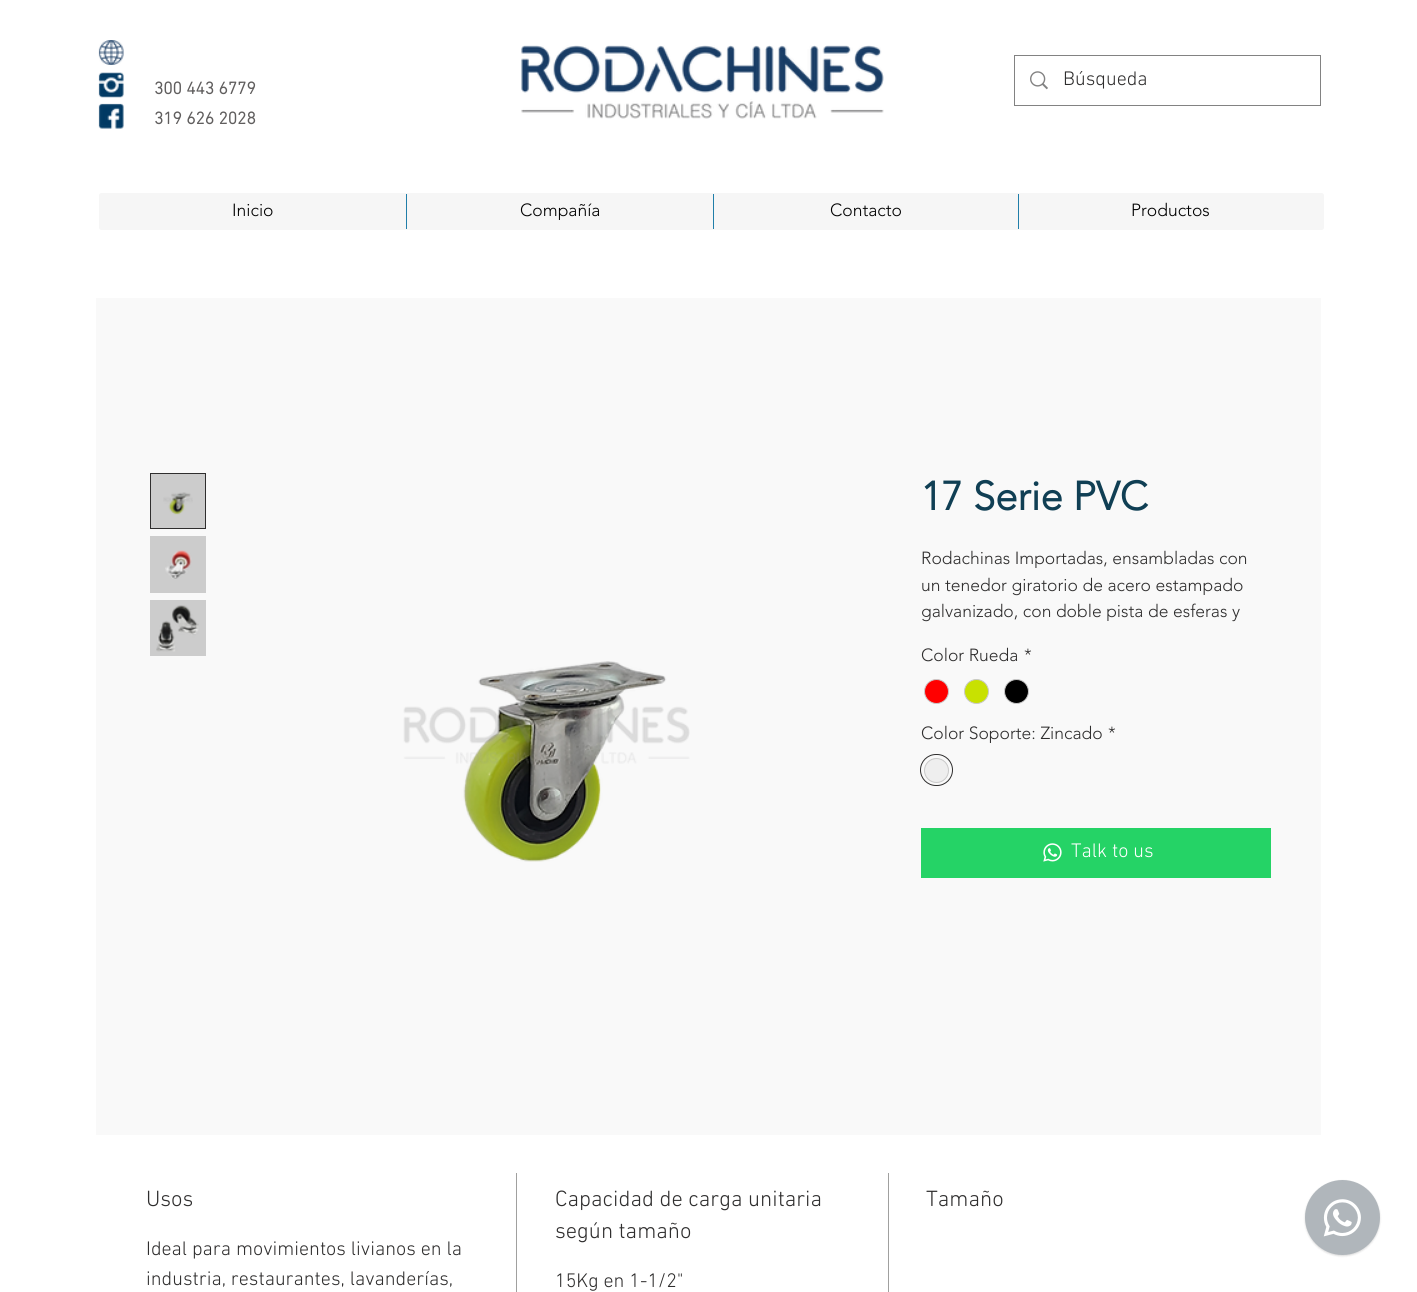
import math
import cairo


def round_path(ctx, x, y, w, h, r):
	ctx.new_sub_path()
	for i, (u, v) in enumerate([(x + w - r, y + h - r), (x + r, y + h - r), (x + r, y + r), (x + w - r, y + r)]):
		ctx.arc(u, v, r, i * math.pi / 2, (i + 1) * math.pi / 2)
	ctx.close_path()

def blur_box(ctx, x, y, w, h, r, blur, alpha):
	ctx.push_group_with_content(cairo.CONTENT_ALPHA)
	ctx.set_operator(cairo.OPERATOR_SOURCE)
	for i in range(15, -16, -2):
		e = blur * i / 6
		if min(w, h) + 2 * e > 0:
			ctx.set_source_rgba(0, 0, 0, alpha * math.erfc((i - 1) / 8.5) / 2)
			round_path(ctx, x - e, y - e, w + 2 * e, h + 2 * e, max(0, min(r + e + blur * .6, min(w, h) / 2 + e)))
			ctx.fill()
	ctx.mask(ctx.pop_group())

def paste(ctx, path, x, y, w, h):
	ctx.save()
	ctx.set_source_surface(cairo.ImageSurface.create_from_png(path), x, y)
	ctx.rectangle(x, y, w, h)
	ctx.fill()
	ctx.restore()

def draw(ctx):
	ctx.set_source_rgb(1, 1, 1)
	ctx.paint()
	paste(ctx, 'media/1.png', 98, 40, 26, 25)
	paste(ctx, 'media/2.png', 98, 72, 26, 26)
	paste(ctx, 'media/3.png', 98, 103, 26, 26)
	ctx.select_font_face('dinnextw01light', cairo.FONT_SLANT_NORMAL, cairo.FONT_WEIGHT_BOLD)
	ctx.set_font_size(17.5)
	ctx.set_source_rgb(0.376, 0.369, 0.369)
	ctx.move_to(154, 94)
	ctx.show_text('300 443 6779')
	paste(ctx, 'media/4.png', 521, 45, 363, 74)
	ctx.rectangle(1014.5, 55.5, 306, 50)
	ctx.set_source_rgb(0.51, 0.51, 0.51)
	ctx.set_line_width(1)
	ctx.stroke()
	paste(ctx, 'media/5.png', 1030, 71, 18, 19)
	ctx.select_font_face('dinnextw01light Light')
	ctx.set_font_size(20)
	ctx.set_source_rgb(0.184, 0.18, 0.18)
	ctx.move_to(1063, 85)
	ctx.show_text('Búsqueda')
	ctx.select_font_face('dinnextw01light', cairo.FONT_SLANT_NORMAL, cairo.FONT_WEIGHT_BOLD)
	ctx.set_font_size(17.5)
	ctx.set_source_rgb(0.376, 0.369, 0.369)
	ctx.move_to(154, 124)
	ctx.show_text('319 626 2028')
	ctx.set_source_rgb(0.961, 0.961, 0.961)
	round_path(ctx, 99, 193, 1225, 37, 2.5)
	ctx.fill()
	ctx.select_font_face('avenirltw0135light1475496 Light')
	ctx.set_source_rgb(0, 0, 0)
	ctx.move_to(232, 216)
	ctx.show_text('Inicio')
	ctx.set_source_rgb(0.125, 0.494, 0.663)
	ctx.rectangle(406, 194, 1, 35)
	ctx.fill()
	ctx.set_source_rgb(0, 0, 0)
	ctx.move_to(520, 216)
	ctx.show_text('Compañía')
	ctx.set_source_rgb(0.125, 0.494, 0.663)
	ctx.rectangle(713, 194, 1, 35)
	ctx.fill()
	ctx.set_source_rgb(0, 0, 0)
	ctx.move_to(830, 216)
	ctx.show_text('Contacto')
	ctx.set_source_rgb(0.125, 0.494, 0.663)
	ctx.rectangle(1018, 194, 1, 35)
	ctx.fill()
	ctx.set_source_rgb(0, 0, 0)
	ctx.move_to(1131, 216)
	ctx.show_text('Productos')
	ctx.set_source_rgb(0.976, 0.976, 0.976)
	ctx.rectangle(96, 298, 1225, 837)
	ctx.fill()
	ctx.set_source_rgb(0.8, 0.8, 0.8)
	ctx.rectangle(150.5, 473.5, 55, 55)
	ctx.fill_preserve()
	ctx.set_source_rgb(0.184, 0.18, 0.18)
	ctx.stroke()
	paste(ctx, 'media/6.png', 163, 492, 30, 23)
	ctx.set_source_rgb(0.8, 0.8, 0.8)
	ctx.rectangle(150, 536, 56, 57)
	ctx.fill()
	paste(ctx, 'media/7.png', 165, 550, 27, 29)
	ctx.rectangle(150, 600, 56, 56)
	ctx.fill()
	paste(ctx, 'media/8.png', 156, 605, 43, 47)
	paste(ctx, 'media/9.png', 403, 661, 287, 201)
	ctx.select_font_face('avenirltw0135light1475496', cairo.FONT_SLANT_NORMAL, cairo.FONT_WEIGHT_BOLD)
	ctx.set_font_size(40)
	ctx.set_source_rgb(0.063, 0.247, 0.329)
	ctx.move_to(921, 510)
	ctx.show_text('17 Serie PVC')
	ctx.select_font_face('avenirltw0135light1475496 Light')
	ctx.set_font_size(17.5)
	ctx.set_source_rgb(0.184, 0.18, 0.18)
	for x, y, s in [
		(921, 564, 'Rodachinas Importadas, ensambladas con'),
		(921, 591, 'un tenedor giratorio de acero estampado'),
		(921, 617, 'galvanizado, con doble pista de esferas y'),
		(921, 661, 'Color Rueda'),
		(1024, 661, '*'),
	]:
		ctx.move_to(x, y)
		ctx.show_text(s)
	ctx.set_source_rgb(1, 0, 0)
	ctx.new_path()
	ctx.arc(936.5, 691.5, 12, 0, 2 * math.pi)
	ctx.fill_preserve()
	ctx.set_source_rgb(0.788, 0.788, 0.788)
	ctx.stroke()
	ctx.set_source_rgb(0.784, 0.882, 0.004)
	ctx.arc(976.5, 691.5, 12, 0, 2 * math.pi)
	ctx.fill_preserve()
	ctx.set_source_rgb(0.788, 0.788, 0.788)
	ctx.stroke()
	ctx.set_source_rgb(0, 0, 0)
	ctx.arc(1016.5, 691.5, 12, 0, 2 * math.pi)
	ctx.fill_preserve()
	ctx.set_source_rgb(0.788, 0.788, 0.788)
	ctx.stroke()
	ctx.set_source_rgb(0.184, 0.18, 0.18)
	ctx.move_to(921, 739)
	ctx.show_text('Color Soporte: Zincado')
	ctx.move_to(1108, 739)
	ctx.show_text('*')
	round_path(ctx, 920.5, 754.5, 32, 31, 15.5)
	ctx.stroke()
	ctx.set_source_rgb(0.933, 0.933, 0.933)
	ctx.arc(936.5, 770.5, 12, 0, 2 * math.pi)
	ctx.fill_preserve()
	ctx.set_source_rgb(0.788, 0.788, 0.788)
	ctx.stroke()
	ctx.set_source_rgb(0.145, 0.827, 0.4)
	ctx.rectangle(921, 828, 350, 50)
	ctx.fill()
	paste(ctx, 'media/10.png', 1043, 843, 19, 19)
	ctx.select_font_face('dinnextw01light Light')
	ctx.set_font_size(20)
	ctx.set_source_rgb(1, 1, 1)
	ctx.move_to(1071, 857)
	ctx.show_text('Talk to us')
	ctx.set_source_rgb(0.627, 0.627, 0.624)
	ctx.rectangle(516, 1173, 1, 119)
	ctx.fill()
	ctx.set_font_size(22.5)
	ctx.set_source_rgb(0.184, 0.18, 0.18)
	ctx.move_to(146, 1206)
	ctx.show_text('Usos')
	ctx.set_font_size(20)
	ctx.move_to(146, 1255)
	ctx.show_text('Ideal para movimientos livianos en la')
	ctx.move_to(146, 1285)
	ctx.show_text('industria, restaurantes, lavanderías,')
	ctx.set_source_rgb(0.627, 0.627, 0.624)
	ctx.rectangle(888, 1173, 1, 119)
	ctx.fill()
	ctx.set_font_size(22.5)
	ctx.set_source_rgb(0.184, 0.18, 0.18)
	ctx.move_to(555, 1206)
	ctx.show_text('Capacidad de carga unitaria')
	ctx.move_to(555, 1238)
	ctx.show_text('según tamaño')
	ctx.set_font_size(20)
	ctx.move_to(555, 1287)
	ctx.show_text('15Kg en 1-1/2"')
	ctx.set_font_size(22.5)
	ctx.move_to(926, 1206)
	ctx.show_text('Tamaño')
	ctx.set_source_rgb(0, 0, 0)
	blur_box(ctx, 1305, 1181, 75, 75, 37.5, 1, 0.15)
	ctx.set_source_rgb(0.69, 0.714, 0.733)
	ctx.arc(1342.5, 1217.5, 37.5, 0, 2 * math.pi)
	ctx.fill()
	paste(ctx, 'media/11.png', 1323, 1199, 38, 38)


surface = cairo.ImageSurface(cairo.FORMAT_RGB24, 1417, 1292)
ctx = cairo.Context(surface)
options = cairo.FontOptions()
options.set_hint_metrics(cairo.HINT_METRICS_OFF)
options.set_hint_style(cairo.HINT_STYLE_NONE)
ctx.set_font_options(options)
ctx.set_miter_limit(4)
draw(ctx)
surface.write_to_png('image.png')
